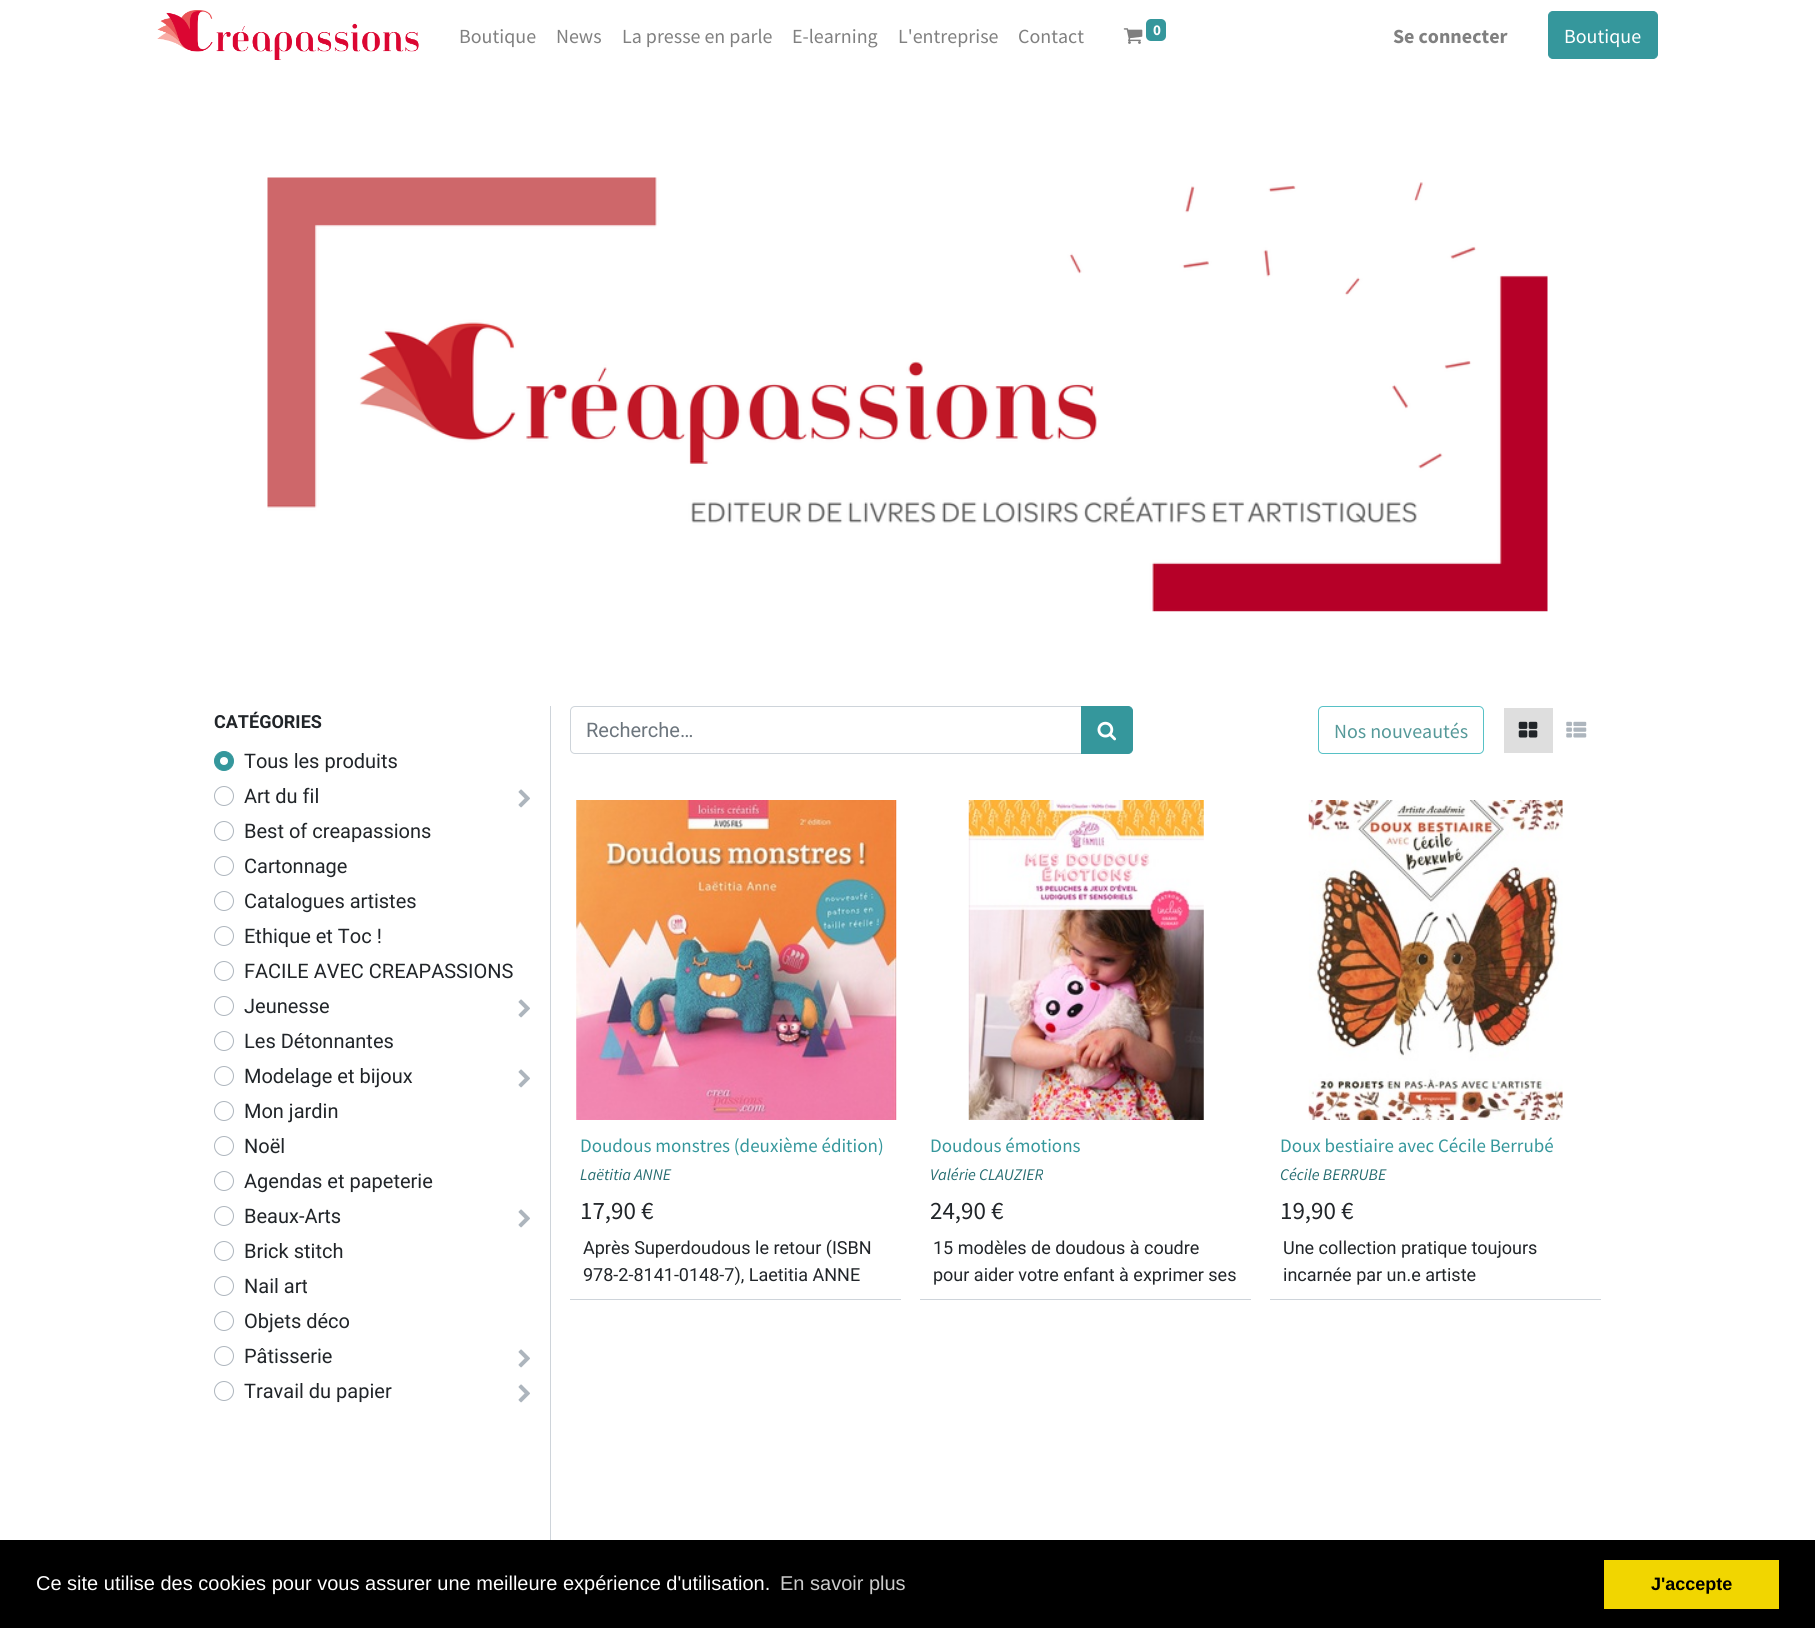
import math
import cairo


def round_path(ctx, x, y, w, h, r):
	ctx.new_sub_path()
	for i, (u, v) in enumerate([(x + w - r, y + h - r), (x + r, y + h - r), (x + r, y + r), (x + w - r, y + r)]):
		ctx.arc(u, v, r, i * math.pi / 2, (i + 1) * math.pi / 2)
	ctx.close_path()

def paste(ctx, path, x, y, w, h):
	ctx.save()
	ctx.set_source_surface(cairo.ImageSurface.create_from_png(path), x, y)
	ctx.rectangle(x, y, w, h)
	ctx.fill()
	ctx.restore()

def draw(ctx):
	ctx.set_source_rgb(1, 1, 1)
	ctx.paint()
	paste(ctx, 'media/1.png', 157, 10, 262, 50)
	ctx.select_font_face('Source Sans Pro')
	ctx.set_font_size(20)
	ctx.set_source_rgb(0.502, 0.502, 0.502)
	for x, y, s in [
		(459, 43, 'Boutique'),
		(556, 43, 'News'),
		(622, 43, 'La presse en parle'),
		(792, 43, 'E-learning'),
		(898, 43, 'L\'entreprise'),
		(1018, 43, 'Contact'),
	]:
		ctx.move_to(x, y)
		ctx.show_text(s)
	paste(ctx, 'media/2.png', 1123, 28, 20, 16)
	ctx.set_source_rgb(0.208, 0.592, 0.612)
	round_path(ctx, 1146, 19, 20, 22, 5)
	ctx.fill()
	ctx.select_font_face('Source Sans Pro', cairo.FONT_SLANT_NORMAL, cairo.FONT_WEIGHT_BOLD)
	ctx.set_font_size(15)
	ctx.set_source_rgb(1, 1, 1)
	ctx.move_to(1153, 35)
	ctx.show_text('0')
	ctx.set_font_size(20)
	ctx.set_source_rgb(0.502, 0.502, 0.502)
	ctx.move_to(1393, 43)
	ctx.show_text('Se connecter')
	ctx.set_source_rgb(0.208, 0.592, 0.612)
	round_path(ctx, 1548.5, 11.5, 109, 47, 4.5)
	ctx.fill_preserve()
	ctx.set_line_width(1)
	ctx.stroke()
	ctx.select_font_face('Source Sans Pro')
	ctx.set_source_rgb(1, 1, 1)
	ctx.move_to(1564, 43)
	ctx.show_text('Boutique')
	paste(ctx, 'media/3.png', 267, 177, 1281, 435)
	ctx.set_source_rgb(0.808, 0.831, 0.855)
	ctx.rectangle(550, 706, 1, 834)
	ctx.fill()
	ctx.select_font_face('Roboto', cairo.FONT_SLANT_NORMAL, cairo.FONT_WEIGHT_BOLD)
	ctx.set_font_size(18)
	ctx.set_source_rgb(0.129, 0.145, 0.161)
	ctx.move_to(214, 728)
	ctx.show_text('CATÉGORIES')
	ctx.set_source_rgb(0.208, 0.592, 0.612)
	ctx.new_path()
	ctx.arc(224, 761, 9.5, 0, 2 * math.pi)
	ctx.fill_preserve()
	ctx.stroke()
	ctx.select_font_face('Roboto')
	ctx.set_font_size(20)
	ctx.set_source_rgb(0.129, 0.145, 0.161)
	ctx.move_to(244, 768)
	ctx.show_text('Tous les produits')
	ctx.set_source_rgb(1, 1, 1)
	ctx.new_path()
	ctx.arc(224, 761, 4, 0, 2 * math.pi)
	ctx.fill()
	ctx.arc(224, 796, 9.5, 0, 2 * math.pi)
	ctx.set_source_rgb(0.678, 0.71, 0.741)
	ctx.stroke()
	ctx.set_source_rgb(0.129, 0.145, 0.161)
	ctx.move_to(244, 803)
	ctx.show_text('Art du fil')
	paste(ctx, 'media/4.png', 518, 789, 12, 19)
	ctx.arc(224, 831, 9.5, 0, 2 * math.pi)
	ctx.set_source_rgb(0.678, 0.71, 0.741)
	ctx.stroke()
	ctx.set_source_rgb(0.129, 0.145, 0.161)
	ctx.move_to(244, 838)
	ctx.show_text('Best of creapassions')
	ctx.new_path()
	ctx.arc(224, 866, 9.5, 0, 2 * math.pi)
	ctx.set_source_rgb(0.678, 0.71, 0.741)
	ctx.stroke()
	ctx.set_source_rgb(0.129, 0.145, 0.161)
	ctx.move_to(244, 873)
	ctx.show_text('Cartonnage')
	ctx.new_path()
	ctx.arc(224, 901, 9.5, 0, 2 * math.pi)
	ctx.set_source_rgb(0.678, 0.71, 0.741)
	ctx.stroke()
	ctx.set_source_rgb(0.129, 0.145, 0.161)
	ctx.move_to(244, 908)
	ctx.show_text('Catalogues artistes')
	ctx.new_path()
	ctx.arc(224, 936, 9.5, 0, 2 * math.pi)
	ctx.set_source_rgb(0.678, 0.71, 0.741)
	ctx.stroke()
	ctx.set_source_rgb(0.129, 0.145, 0.161)
	ctx.move_to(244, 943)
	ctx.show_text('Ethique et Toc !')
	ctx.new_path()
	ctx.arc(224, 971, 9.5, 0, 2 * math.pi)
	ctx.set_source_rgb(0.678, 0.71, 0.741)
	ctx.stroke()
	ctx.set_source_rgb(0.129, 0.145, 0.161)
	ctx.move_to(244, 978)
	ctx.show_text('FACILE AVEC CREAPASSIONS')
	ctx.new_path()
	ctx.arc(224, 1006, 9.5, 0, 2 * math.pi)
	ctx.set_source_rgb(0.678, 0.71, 0.741)
	ctx.stroke()
	ctx.set_source_rgb(0.129, 0.145, 0.161)
	ctx.move_to(244, 1013)
	ctx.show_text('Jeunesse')
	paste(ctx, 'media/4.png', 518, 999, 12, 19)
	ctx.arc(224, 1041, 9.5, 0, 2 * math.pi)
	ctx.set_source_rgb(0.678, 0.71, 0.741)
	ctx.stroke()
	ctx.set_source_rgb(0.129, 0.145, 0.161)
	ctx.move_to(244, 1048)
	ctx.show_text('Les Détonnantes')
	ctx.new_path()
	ctx.arc(224, 1076, 9.5, 0, 2 * math.pi)
	ctx.set_source_rgb(0.678, 0.71, 0.741)
	ctx.stroke()
	ctx.set_source_rgb(0.129, 0.145, 0.161)
	ctx.move_to(244, 1083)
	ctx.show_text('Modelage et bijoux')
	paste(ctx, 'media/4.png', 518, 1069, 12, 19)
	ctx.arc(224, 1111, 9.5, 0, 2 * math.pi)
	ctx.set_source_rgb(0.678, 0.71, 0.741)
	ctx.stroke()
	ctx.set_source_rgb(0.129, 0.145, 0.161)
	ctx.move_to(244, 1118)
	ctx.show_text('Mon jardin')
	ctx.new_path()
	ctx.arc(224, 1146, 9.5, 0, 2 * math.pi)
	ctx.set_source_rgb(0.678, 0.71, 0.741)
	ctx.stroke()
	ctx.set_source_rgb(0.129, 0.145, 0.161)
	ctx.move_to(244, 1153)
	ctx.show_text('Noël')
	ctx.new_path()
	ctx.arc(224, 1181, 9.5, 0, 2 * math.pi)
	ctx.set_source_rgb(0.678, 0.71, 0.741)
	ctx.stroke()
	ctx.set_source_rgb(0.129, 0.145, 0.161)
	ctx.move_to(244, 1188)
	ctx.show_text('Agendas et papeterie')
	ctx.new_path()
	ctx.arc(224, 1216, 9.5, 0, 2 * math.pi)
	ctx.set_source_rgb(0.678, 0.71, 0.741)
	ctx.stroke()
	ctx.set_source_rgb(0.129, 0.145, 0.161)
	ctx.move_to(244, 1223)
	ctx.show_text('Beaux-Arts')
	paste(ctx, 'media/4.png', 518, 1209, 12, 19)
	ctx.arc(224, 1251, 9.5, 0, 2 * math.pi)
	ctx.set_source_rgb(0.678, 0.71, 0.741)
	ctx.stroke()
	ctx.set_source_rgb(0.129, 0.145, 0.161)
	ctx.move_to(244, 1258)
	ctx.show_text('Brick stitch')
	ctx.new_path()
	ctx.arc(224, 1286, 9.5, 0, 2 * math.pi)
	ctx.set_source_rgb(0.678, 0.71, 0.741)
	ctx.stroke()
	ctx.set_source_rgb(0.129, 0.145, 0.161)
	ctx.move_to(244, 1293)
	ctx.show_text('Nail art')
	ctx.new_path()
	ctx.arc(224, 1321, 9.5, 0, 2 * math.pi)
	ctx.set_source_rgb(0.678, 0.71, 0.741)
	ctx.stroke()
	ctx.set_source_rgb(0.129, 0.145, 0.161)
	ctx.move_to(244, 1328)
	ctx.show_text('Objets déco')
	ctx.new_path()
	ctx.arc(224, 1356, 9.5, 0, 2 * math.pi)
	ctx.set_source_rgb(0.678, 0.71, 0.741)
	ctx.stroke()
	ctx.set_source_rgb(0.129, 0.145, 0.161)
	ctx.move_to(244, 1363)
	ctx.show_text('Pâtisserie')
	paste(ctx, 'media/4.png', 518, 1349, 12, 19)
	ctx.arc(224, 1391, 9.5, 0, 2 * math.pi)
	ctx.set_source_rgb(0.678, 0.71, 0.741)
	ctx.stroke()
	ctx.set_source_rgb(0.129, 0.145, 0.161)
	ctx.move_to(244, 1398)
	ctx.show_text('Travail du papier')
	paste(ctx, 'media/4.png', 518, 1384, 12, 19)
	ctx.new_path()
	ctx.move_to(575, 706.5)
	ctx.line_to(1082.5, 706.5)
	ctx.line_to(1082.5, 753.5)
	ctx.line_to(575, 753.5)
	ctx.curve_to(572.5, 753.5, 570.5, 751.5, 570.5, 749)
	ctx.line_to(570.5, 711)
	ctx.curve_to(570.5, 708.5, 572.5, 706.5, 575, 706.5)
	ctx.close_path()
	ctx.set_source_rgb(0.808, 0.831, 0.855)
	ctx.stroke()
	ctx.set_source_rgb(0.424, 0.459, 0.49)
	ctx.move_to(586, 737)
	ctx.show_text('Recherche…')
	ctx.set_source_rgb(0.208, 0.592, 0.612)
	ctx.new_path()
	ctx.move_to(1081.5, 706.5)
	ctx.line_to(1128, 706.5)
	ctx.curve_to(1130.5, 706.5, 1132.5, 708.5, 1132.5, 711)
	ctx.line_to(1132.5, 749)
	ctx.curve_to(1132.5, 751.5, 1130.5, 753.5, 1128, 753.5)
	ctx.line_to(1081.5, 753.5)
	ctx.close_path()
	ctx.fill_preserve()
	ctx.stroke()
	paste(ctx, 'media/5.png', 1097, 721, 19, 20)
	round_path(ctx, 1318.5, 706.5, 165, 47, 4.5)
	ctx.set_source_rgb(0.341, 0.757, 0.776)
	ctx.stroke()
	ctx.select_font_face('Source Sans Pro')
	ctx.set_source_rgb(0.333, 0.6, 0.6)
	ctx.move_to(1334, 738)
	ctx.show_text('Nos nouveautés')
	ctx.set_source_rgb(0.871, 0.871, 0.871)
	ctx.rectangle(1504, 708, 49, 45)
	ctx.fill()
	paste(ctx, 'media/6.png', 1518, 721, 20, 17)
	paste(ctx, 'media/7.png', 1566, 721, 21, 17)
	ctx.set_source_rgb(0.808, 0.831, 0.855)
	ctx.rectangle(570, 1299, 331, 1)
	ctx.fill()
	paste(ctx, 'media/8.png', 576, 800, 321, 320)
	ctx.set_font_size(19)
	ctx.set_source_rgb(0.208, 0.592, 0.612)
	ctx.move_to(580, 1152)
	ctx.show_text('Doudous monstres (deuxième édition)')
	ctx.select_font_face('Source Sans Pro', cairo.FONT_SLANT_ITALIC)
	ctx.set_font_size(16.25)
	ctx.set_source_rgb(0.153, 0.431, 0.447)
	ctx.move_to(580, 1180)
	ctx.show_text('Laëtitia ANNE')
	ctx.select_font_face('Source Sans Pro')
	ctx.set_font_size(25)
	ctx.set_source_rgb(0.129, 0.145, 0.161)
	ctx.move_to(580, 1219)
	ctx.show_text('17,90 €')
	ctx.select_font_face('Roboto')
	ctx.set_font_size(18)
	ctx.move_to(583, 1254)
	ctx.show_text('Après Superdoudous le retour (ISBN')
	ctx.move_to(583, 1281)
	ctx.show_text('978-2-8141-0148-7), Laetitia ANNE')
	ctx.set_source_rgb(0.808, 0.831, 0.855)
	ctx.rectangle(920, 1299, 331, 1)
	ctx.fill()
	paste(ctx, 'media/9.png', 968, 800, 236, 320)
	ctx.select_font_face('Source Sans Pro')
	ctx.set_font_size(19)
	ctx.set_source_rgb(0.208, 0.592, 0.612)
	ctx.move_to(930, 1152)
	ctx.show_text('Doudous émotions')
	ctx.select_font_face('Source Sans Pro', cairo.FONT_SLANT_ITALIC)
	ctx.set_font_size(16.25)
	ctx.set_source_rgb(0.153, 0.431, 0.447)
	ctx.move_to(930, 1180)
	ctx.show_text('Valérie CLAUZIER')
	ctx.select_font_face('Source Sans Pro')
	ctx.set_font_size(25)
	ctx.set_source_rgb(0.129, 0.145, 0.161)
	ctx.move_to(930, 1219)
	ctx.show_text('24,90 €')
	ctx.select_font_face('Roboto')
	ctx.set_font_size(18)
	ctx.move_to(933, 1254)
	ctx.show_text('15 modèles de doudous à coudre')
	ctx.move_to(933, 1281)
	ctx.show_text('pour aider votre enfant à exprimer ses')
	ctx.set_source_rgb(0.808, 0.831, 0.855)
	ctx.rectangle(1270, 1299, 331, 1)
	ctx.fill()
	paste(ctx, 'media/10.png', 1308, 800, 255, 320)
	ctx.select_font_face('Source Sans Pro')
	ctx.set_font_size(19)
	ctx.set_source_rgb(0.208, 0.592, 0.612)
	ctx.move_to(1280, 1152)
	ctx.show_text('Doux bestiaire avec Cécile Berrubé')
	ctx.select_font_face('Source Sans Pro', cairo.FONT_SLANT_ITALIC)
	ctx.set_font_size(16.25)
	ctx.set_source_rgb(0.153, 0.431, 0.447)
	ctx.move_to(1280, 1180)
	ctx.show_text('Cécile BERRUBE')
	ctx.select_font_face('Source Sans Pro')
	ctx.set_font_size(25)
	ctx.set_source_rgb(0.129, 0.145, 0.161)
	ctx.move_to(1280, 1219)
	ctx.show_text('19,90 €')
	ctx.select_font_face('Roboto')
	ctx.set_font_size(18)
	ctx.move_to(1283, 1254)
	ctx.show_text('Une collection pratique toujours')
	ctx.move_to(1283, 1281)
	ctx.show_text('incarnée par un.e artiste')
	ctx.set_source_rgb(0, 0, 0)
	ctx.rectangle(0, 1540, 1815, 88)
	ctx.fill()
	ctx.select_font_face('Liberation Sans')
	ctx.set_font_size(20)
	ctx.set_source_rgb(1, 1, 1)
	ctx.move_to(36, 1590)
	ctx.show_text('Ce site utilise des cookies pour vous assurer une meilleure expérience d\'utilisation.')
	ctx.set_source_rgb(0.8, 0.8, 0.8)
	ctx.move_to(780, 1590)
	ctx.show_text('En savoir plus')
	ctx.set_source_rgb(0.945, 0.839, 0)
	ctx.rectangle(1604, 1560, 175, 49)
	ctx.fill()
	ctx.select_font_face('Liberation Sans', cairo.FONT_SLANT_NORMAL, cairo.FONT_WEIGHT_BOLD)
	ctx.set_font_size(18)
	ctx.set_source_rgb(0, 0, 0)
	ctx.move_to(1651, 1590)
	ctx.show_text('J\'accepte')


surface = cairo.ImageSurface(cairo.FORMAT_RGB24, 1815, 1628)
ctx = cairo.Context(surface)
options = cairo.FontOptions()
options.set_hint_metrics(cairo.HINT_METRICS_OFF)
options.set_hint_style(cairo.HINT_STYLE_NONE)
ctx.set_font_options(options)
ctx.set_miter_limit(4)
draw(ctx)
surface.write_to_png('image.png')
